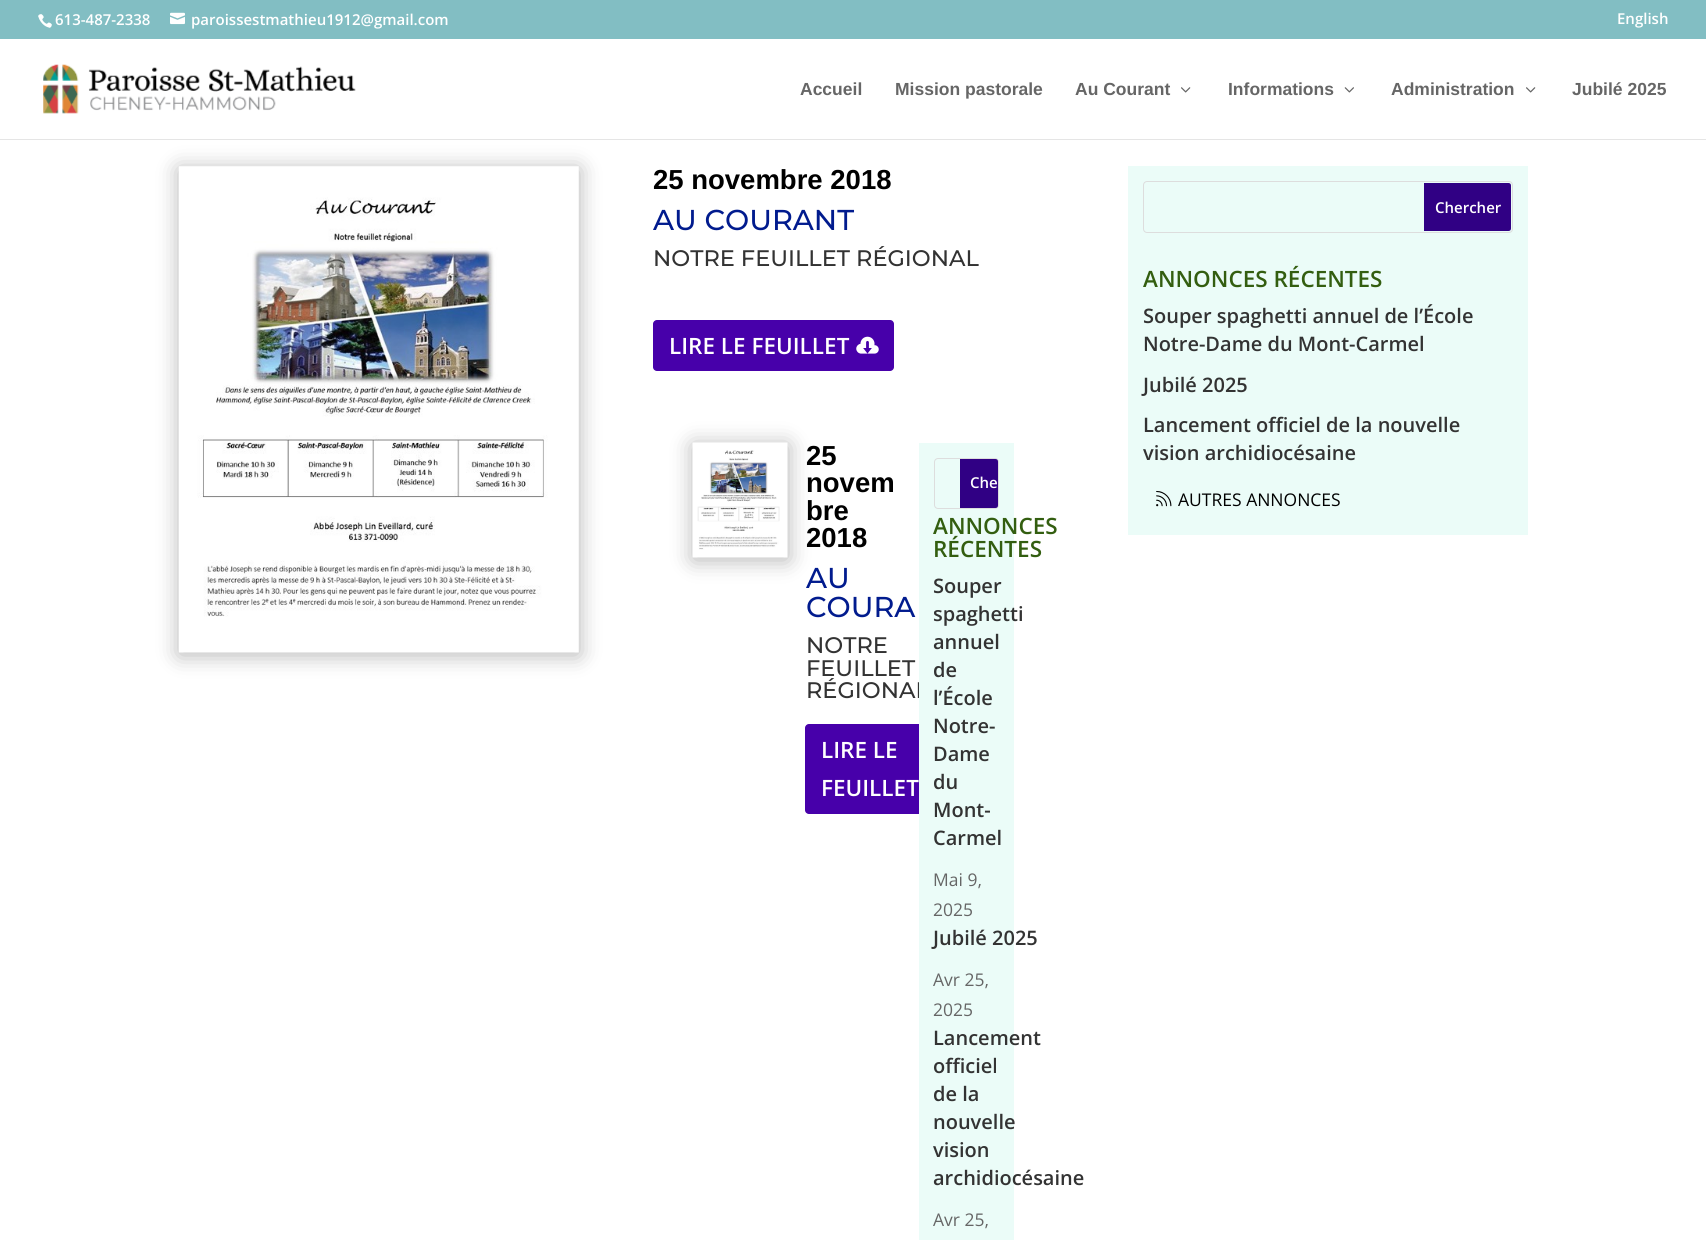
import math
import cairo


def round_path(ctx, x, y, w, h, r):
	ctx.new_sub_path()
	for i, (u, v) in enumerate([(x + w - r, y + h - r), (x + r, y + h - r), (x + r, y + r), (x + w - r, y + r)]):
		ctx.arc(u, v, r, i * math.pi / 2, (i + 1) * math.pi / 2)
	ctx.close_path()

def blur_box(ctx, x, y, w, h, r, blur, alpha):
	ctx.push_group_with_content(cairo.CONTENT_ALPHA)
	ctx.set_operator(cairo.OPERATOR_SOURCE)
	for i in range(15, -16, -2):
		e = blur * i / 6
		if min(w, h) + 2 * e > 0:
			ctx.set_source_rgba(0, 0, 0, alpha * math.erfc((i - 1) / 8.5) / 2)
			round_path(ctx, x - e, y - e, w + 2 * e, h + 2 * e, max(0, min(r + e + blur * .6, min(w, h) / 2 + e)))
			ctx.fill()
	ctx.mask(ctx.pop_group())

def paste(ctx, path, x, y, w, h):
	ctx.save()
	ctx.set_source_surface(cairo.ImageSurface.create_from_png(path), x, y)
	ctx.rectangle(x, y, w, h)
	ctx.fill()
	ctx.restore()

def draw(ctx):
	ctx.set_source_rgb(1, 1, 1)
	ctx.paint()
	ctx.set_source_rgb(0.51, 0.745, 0.765)
	ctx.rectangle(0, 0, 1706, 39)
	ctx.fill()
	paste(ctx, 'media/1.png', 38, 14, 14, 14)
	ctx.select_font_face('Open Sans SemiBold')
	ctx.set_font_size(15)
	ctx.set_source_rgb(1, 1, 1)
	ctx.move_to(55, 25)
	ctx.show_text('613-487-2338')
	paste(ctx, 'media/2.png', 170, 12, 15, 13)
	ctx.move_to(191, 25)
	ctx.show_text('paroissestmathieu1912@gmail.com')
	ctx.move_to(1617, 24)
	ctx.show_text('English')
	ctx.set_source_rgb(0, 0, 0)
	blur_box(ctx, 179, 169, 400, 486, 0, 11, 0.3)
	ctx.set_source_rgb(0.898, 0.898, 0.898)
	ctx.rectangle(0, 139, 1706, 1)
	ctx.fill()
	paste(ctx, 'media/3.png', 43, 64, 313, 50)
	ctx.select_font_face('Liberation Sans', cairo.FONT_SLANT_NORMAL, cairo.FONT_WEIGHT_BOLD)
	ctx.set_font_size(17.5)
	ctx.set_source_rgb(0.4, 0.4, 0.4)
	for x, y, s in [
		(800, 95, 'Accueil'),
		(895, 95, 'Mission pastorale'),
		(1075, 95, 'Au Courant'),
	]:
		ctx.move_to(x, y)
		ctx.show_text(s)
	paste(ctx, 'media/4.png', 1181, 87, 10, 6)
	ctx.move_to(1228, 95)
	ctx.show_text('Informations')
	paste(ctx, 'media/5.png', 1344, 87, 10, 6)
	ctx.move_to(1391, 95)
	ctx.show_text('Administration')
	paste(ctx, 'media/4.png', 1526, 87, 10, 6)
	ctx.move_to(1572, 95)
	ctx.show_text('Jubilé 2025')
	paste(ctx, 'media/6.png', 178, 166, 401, 487)
	ctx.set_font_size(27.5)
	ctx.set_source_rgb(0, 0, 0)
	ctx.move_to(653, 189)
	ctx.show_text('25 novembre 2018')
	ctx.select_font_face('Montserrat Thin')
	ctx.set_font_size(28.75)
	ctx.set_source_rgb(0.004, 0.106, 0.557)
	ctx.move_to(653, 230)
	ctx.show_text('AU COURANT')
	ctx.set_font_size(22.5)
	ctx.set_source_rgb(0.2, 0.2, 0.2)
	ctx.move_to(653, 266)
	ctx.show_text('NOTRE FEUILLET RÉGIONAL')
	ctx.set_source_rgb(0.278, 0, 0.667)
	round_path(ctx, 653, 320, 241, 51, 4)
	ctx.fill()
	ctx.select_font_face('Open Sans SemiBold')
	ctx.set_source_rgb(1, 1, 1)
	ctx.move_to(669, 354)
	ctx.show_text('LIRE LE FEUILLET')
	paste(ctx, 'media/7.png', 856, 336, 23, 18)
	ctx.set_source_rgb(0, 0, 0)
	blur_box(ctx, 693, 445, 95, 115, 0, 11, 0.3)
	paste(ctx, 'media/8.png', 692, 442, 96, 116)
	ctx.select_font_face('Liberation Sans', cairo.FONT_SLANT_NORMAL, cairo.FONT_WEIGHT_BOLD)
	ctx.set_font_size(27.5)
	ctx.set_source_rgb(0, 0, 0)
	for x, y, s in [
		(806, 465, '25'),
		(806, 492, 'novem'),
		(806, 520, 'bre'),
		(806, 547, '2018'),
	]:
		ctx.move_to(x, y)
		ctx.show_text(s)
	ctx.select_font_face('Montserrat Thin')
	ctx.set_font_size(28.75)
	ctx.set_source_rgb(0.004, 0.106, 0.557)
	ctx.move_to(806, 588)
	ctx.show_text('AU')
	ctx.move_to(806, 617)
	ctx.show_text('COURA')
	ctx.set_font_size(22.5)
	ctx.set_source_rgb(0.2, 0.2, 0.2)
	for x, y, s in [
		(806, 653, 'NOTRE'),
		(806, 676, 'FEUILLET'),
		(806, 698, 'RÉGIONAL'),
	]:
		ctx.move_to(x, y)
		ctx.show_text(s)
	ctx.set_source_rgb(0.278, 0, 0.667)
	round_path(ctx, 805, 724, 159, 90, 4)
	ctx.fill()
	ctx.select_font_face('Open Sans SemiBold')
	ctx.set_source_rgb(1, 1, 1)
	ctx.move_to(821, 758)
	ctx.show_text('LIRE LE')
	ctx.move_to(821, 796)
	ctx.show_text('FEUILLET')
	ctx.set_source_rgb(0.918, 0.988, 0.969)
	ctx.rectangle(919, 443, 95, 797)
	ctx.fill()
	round_path(ctx, 934.5, 458.5, 64, 50, 3.5)
	ctx.set_source_rgb(0.867, 0.867, 0.867)
	ctx.set_line_width(1)
	ctx.stroke()
	ctx.set_source_rgb(0.188, 0, 0.518)
	ctx.new_path()
	ctx.move_to(960, 459)
	ctx.line_to(995.5, 459)
	ctx.curve_to(997, 459, 998, 460, 998, 461.5)
	ctx.line_to(998, 505.5)
	ctx.curve_to(998, 507, 997, 508, 995.5, 508)
	ctx.line_to(960, 508)
	ctx.close_path()
	ctx.fill()
	ctx.set_font_size(15)
	ctx.set_source_rgb(1, 1, 1)
	ctx.move_to(970, 488)
	ctx.show_text('Che')
	ctx.set_font_size(22.5)
	ctx.set_source_rgb(0.2, 0.369, 0.063)
	ctx.move_to(933, 534)
	ctx.show_text('ANNONCES')
	ctx.move_to(933, 557)
	ctx.show_text('RÉCENTES')
	ctx.set_font_size(20)
	ctx.set_source_rgb(0.2, 0.2, 0.2)
	for x, y, s in [
		(933, 593, 'Souper'),
		(933, 621, 'spaghetti'),
		(933, 649, 'annuel'),
		(933, 677, 'de'),
		(933, 705, 'l’École'),
		(933, 733, 'Notre-'),
		(933, 761, 'Dame'),
		(933, 789, 'du'),
		(933, 817, 'Mont-'),
		(933, 845, 'Carmel'),
	]:
		ctx.move_to(x, y)
		ctx.show_text(s)
	ctx.select_font_face('Open Sans')
	ctx.set_font_size(17.5)
	ctx.set_source_rgb(0.4, 0.4, 0.4)
	ctx.move_to(933, 886)
	ctx.show_text('Mai 9,')
	ctx.move_to(933, 916)
	ctx.show_text('2025')
	ctx.select_font_face('Open Sans SemiBold')
	ctx.set_font_size(20)
	ctx.set_source_rgb(0.2, 0.2, 0.2)
	ctx.move_to(933, 945)
	ctx.show_text('Jubilé 2025')
	ctx.select_font_face('Open Sans')
	ctx.set_font_size(17.5)
	ctx.set_source_rgb(0.4, 0.4, 0.4)
	ctx.move_to(933, 986)
	ctx.show_text('Avr 25,')
	ctx.move_to(933, 1016)
	ctx.show_text('2025')
	ctx.select_font_face('Open Sans SemiBold')
	ctx.set_font_size(20)
	ctx.set_source_rgb(0.2, 0.2, 0.2)
	for x, y, s in [
		(933, 1045, 'Lancement'),
		(933, 1073, 'officiel'),
		(933, 1101, 'de la'),
		(933, 1129, 'nouvelle'),
		(933, 1157, 'vision'),
		(933, 1185, 'archidiocésaine'),
	]:
		ctx.move_to(x, y)
		ctx.show_text(s)
	ctx.select_font_face('Open Sans')
	ctx.set_font_size(17.5)
	ctx.set_source_rgb(0.4, 0.4, 0.4)
	ctx.move_to(933, 1226)
	ctx.show_text('Avr 25,')
	ctx.set_source_rgb(0.918, 0.988, 0.969)
	ctx.rectangle(1128, 166, 400, 369)
	ctx.fill()
	round_path(ctx, 1143.5, 181.5, 369, 51, 3.5)
	ctx.set_source_rgb(0.867, 0.867, 0.867)
	ctx.stroke()
	ctx.set_source_rgb(0.188, 0, 0.518)
	ctx.new_path()
	ctx.move_to(1424, 183)
	ctx.line_to(1508.5, 183)
	ctx.curve_to(1510, 183, 1511, 184, 1511, 185.5)
	ctx.line_to(1511, 228.5)
	ctx.curve_to(1511, 230, 1510, 231, 1508.5, 231)
	ctx.line_to(1424, 231)
	ctx.close_path()
	ctx.fill()
	ctx.select_font_face('Open Sans SemiBold')
	ctx.set_font_size(15)
	ctx.set_source_rgb(1, 1, 1)
	ctx.move_to(1435, 213)
	ctx.show_text('Chercher')
	ctx.set_font_size(22.5)
	ctx.set_source_rgb(0.2, 0.369, 0.063)
	ctx.move_to(1143, 287)
	ctx.show_text('ANNONCES RÉCENTES')
	ctx.set_font_size(20)
	ctx.set_source_rgb(0.2, 0.2, 0.2)
	for x, y, s in [
		(1143, 323, 'Souper spaghetti annuel de l’École'),
		(1143, 351, 'Notre-Dame du Mont-Carmel'),
		(1143, 392, 'Jubilé 2025'),
		(1143, 432, 'Lancement officiel de la nouvelle'),
		(1143, 460, 'vision archidiocésaine'),
	]:
		ctx.move_to(x, y)
		ctx.show_text(s)
	paste(ctx, 'media/9.png', 1156, 490, 16, 17)
	ctx.select_font_face('Open Sans')
	ctx.set_font_size(17.5)
	ctx.set_source_rgb(0, 0, 0)
	ctx.move_to(1178, 506)
	ctx.show_text('AUTRES ANNONCES')


surface = cairo.ImageSurface(cairo.FORMAT_RGB24, 1706, 1240)
ctx = cairo.Context(surface)
options = cairo.FontOptions()
options.set_hint_metrics(cairo.HINT_METRICS_OFF)
options.set_hint_style(cairo.HINT_STYLE_NONE)
ctx.set_font_options(options)
ctx.set_miter_limit(4)
draw(ctx)
surface.write_to_png('image.png')
